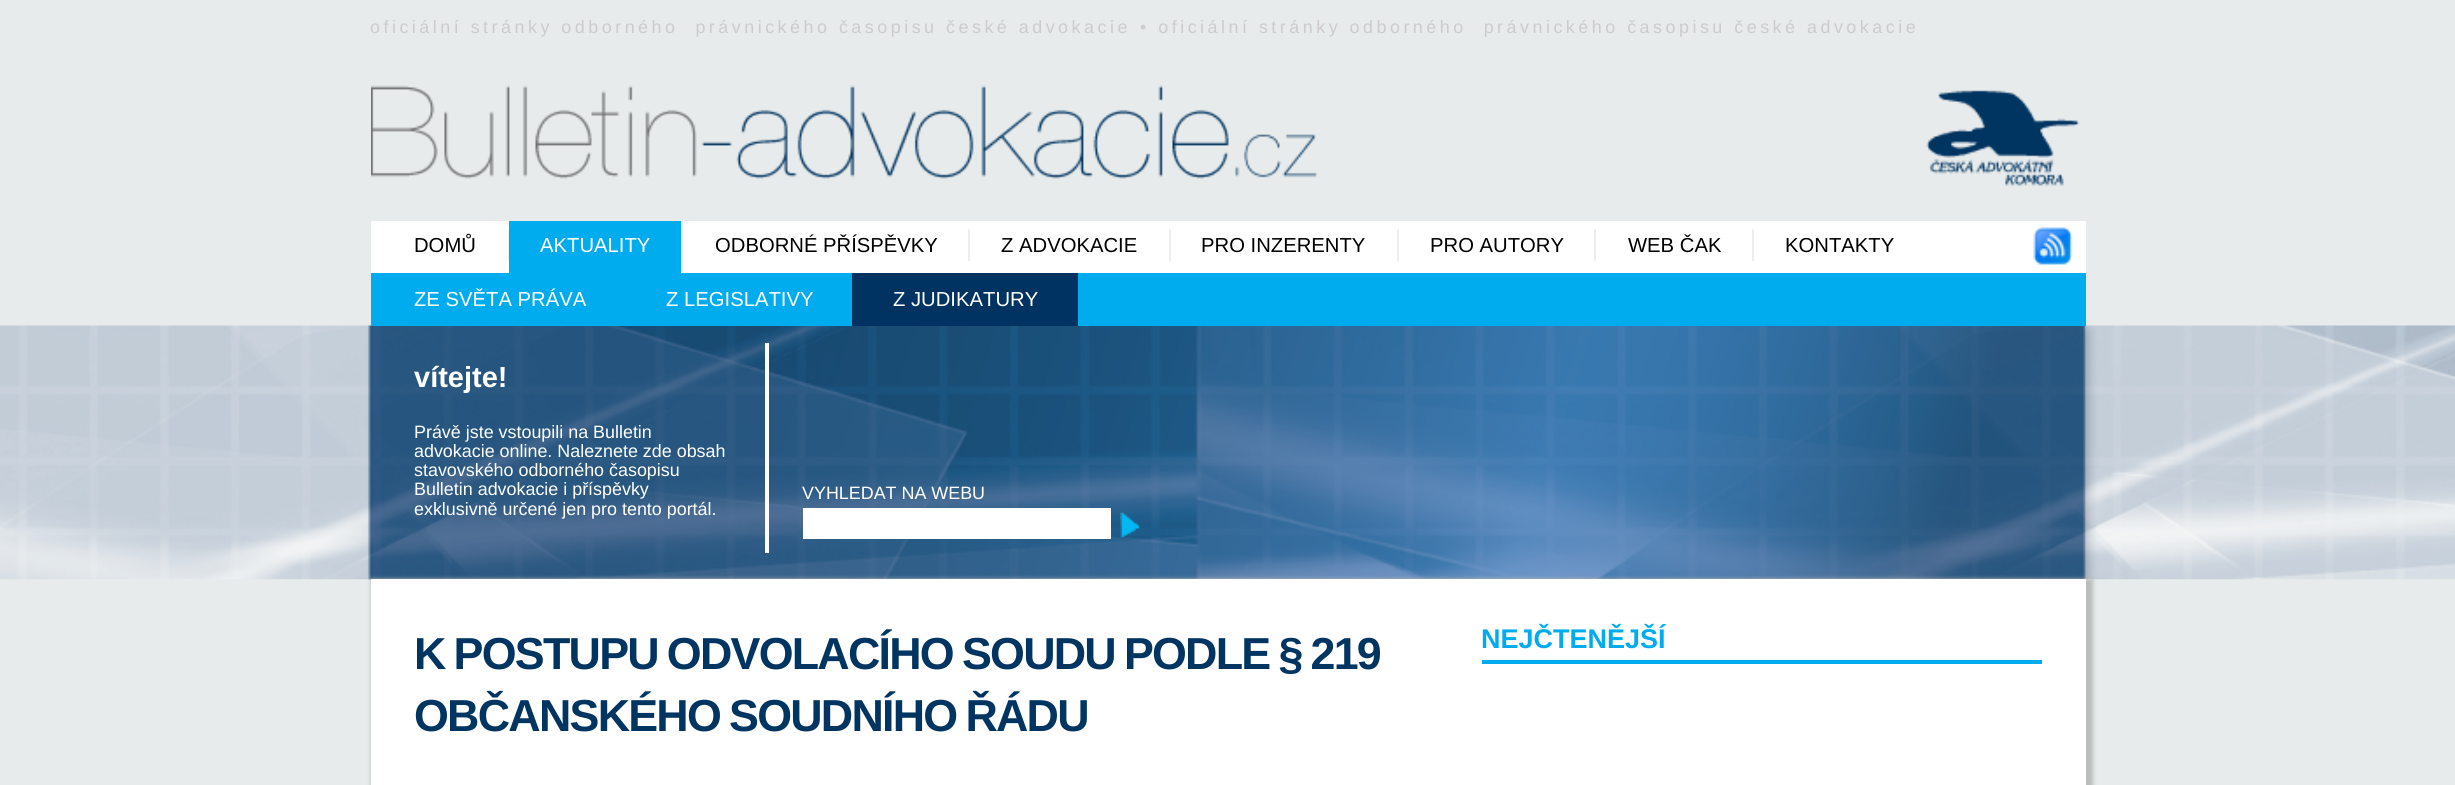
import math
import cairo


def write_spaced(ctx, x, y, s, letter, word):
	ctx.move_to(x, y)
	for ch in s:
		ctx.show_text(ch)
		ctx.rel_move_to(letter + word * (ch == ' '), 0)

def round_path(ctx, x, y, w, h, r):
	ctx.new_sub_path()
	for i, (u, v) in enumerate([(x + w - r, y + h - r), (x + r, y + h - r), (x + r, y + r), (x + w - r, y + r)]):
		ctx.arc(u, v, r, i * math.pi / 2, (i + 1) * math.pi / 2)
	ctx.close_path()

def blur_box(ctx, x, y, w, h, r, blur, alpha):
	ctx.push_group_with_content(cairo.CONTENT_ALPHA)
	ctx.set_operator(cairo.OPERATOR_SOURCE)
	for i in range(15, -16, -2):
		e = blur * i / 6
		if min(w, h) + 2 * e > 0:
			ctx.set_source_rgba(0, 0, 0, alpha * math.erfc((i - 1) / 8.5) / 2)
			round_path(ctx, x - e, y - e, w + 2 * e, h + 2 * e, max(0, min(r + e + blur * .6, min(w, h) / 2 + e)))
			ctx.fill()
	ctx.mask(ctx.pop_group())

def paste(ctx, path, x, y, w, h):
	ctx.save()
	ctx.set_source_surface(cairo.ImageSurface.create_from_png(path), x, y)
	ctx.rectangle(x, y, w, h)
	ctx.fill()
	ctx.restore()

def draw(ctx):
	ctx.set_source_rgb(0.906, 0.918, 0.918)
	ctx.paint()
	ctx.select_font_face('Liberation Sans')
	ctx.set_font_size(17.9)
	ctx.set_source_rgb(0.8, 0.8, 0.8)
	write_spaced(ctx, 370, 33, 'oficiální stránky odborného  právnického časopisu české advokacie', 3.5, 0)
	write_spaced(ctx, 1140, 33, '• oficiální stránky odborného  právnického časopisu české advokacie', 3.5, 0)
	paste(ctx, 'media/1.png', 371, 85, 946, 94)
	paste(ctx, 'media/2.png', 1926, 90, 154, 96)
	ctx.set_source_rgb(1, 1, 1)
	ctx.rectangle(371, 221, 1715, 52)
	ctx.fill()
	ctx.set_source_rgb(0.933, 0.933, 0.933)
	ctx.rectangle(508, 229, 1, 32)
	ctx.fill()
	ctx.set_font_size(20.25)
	ctx.set_source_rgb(0, 0, 0)
	ctx.move_to(414, 252)
	ctx.show_text('DOMŮ')
	ctx.set_source_rgb(0.933, 0.933, 0.933)
	ctx.rectangle(968, 229, 2, 32)
	ctx.fill()
	ctx.set_source_rgb(0, 0, 0)
	ctx.move_to(715, 252)
	ctx.show_text('ODBORNÉ PŘÍSPĚVKY')
	ctx.set_source_rgb(0.933, 0.933, 0.933)
	ctx.rectangle(1169, 229, 2, 32)
	ctx.fill()
	ctx.set_source_rgb(0, 0, 0)
	ctx.move_to(1001, 252)
	ctx.show_text('Z ADVOKACIE')
	ctx.set_source_rgb(0.933, 0.933, 0.933)
	ctx.rectangle(1397, 229, 2, 32)
	ctx.fill()
	ctx.set_source_rgb(0, 0, 0)
	ctx.move_to(1201, 252)
	ctx.show_text('PRO INZERENTY')
	ctx.set_source_rgb(0.933, 0.933, 0.933)
	ctx.rectangle(1594, 229, 2, 32)
	ctx.fill()
	ctx.set_source_rgb(0, 0, 0)
	ctx.move_to(1430, 252)
	ctx.show_text('PRO AUTORY')
	ctx.set_source_rgb(0.933, 0.933, 0.933)
	ctx.rectangle(1752, 229, 2, 32)
	ctx.fill()
	ctx.set_source_rgb(0, 0, 0)
	ctx.move_to(1628, 252)
	ctx.show_text('WEB ČAK')
	ctx.move_to(1785, 252)
	ctx.show_text('KONTAKTY')
	ctx.set_source_rgb(0, 0.675, 0.933)
	ctx.rectangle(509, 221, 172, 52)
	ctx.fill()
	ctx.set_source_rgb(0.933, 0.933, 0.933)
	ctx.rectangle(681, 221, 2, 52)
	ctx.fill()
	ctx.set_source_rgb(1, 1, 1)
	ctx.move_to(540, 252)
	ctx.show_text('AKTUALITY')
	paste(ctx, 'media/4.png', 0, 325, 2455, 255)
	ctx.set_source_rgb(0, 0.675, 0.933)
	ctx.rectangle(371, 273, 1715, 53)
	ctx.fill()
	ctx.set_source_rgb(1, 1, 1)
	ctx.move_to(414, 306)
	ctx.show_text('ZE SVĚTA PRÁVA')
	ctx.move_to(666, 306)
	ctx.show_text('Z LEGISLATIVY')
	ctx.set_source_rgb(0, 0.2, 0.384)
	ctx.rectangle(852, 273, 226, 53)
	ctx.fill()
	ctx.set_source_rgb(1, 1, 1)
	ctx.move_to(893, 306)
	ctx.show_text('Z JUDIKATURY')
	paste(ctx, 'media/3.png', 2033, 227, 40, 38)
	ctx.rectangle(765, 343, 4, 210)
	ctx.fill()
	ctx.select_font_face('Liberation Sans', cairo.FONT_SLANT_NORMAL, cairo.FONT_WEIGHT_BOLD)
	ctx.set_font_size(29)
	ctx.move_to(414, 387)
	ctx.show_text('vítejte!')
	ctx.select_font_face('Liberation Sans')
	ctx.set_font_size(17.9)
	for x, y, s in [
		(414, 438, 'Právě jste vstoupili na Bulletin'),
		(414, 457, 'advokacie online. Naleznete zde obsah'),
		(414, 476, 'stavovského odborného časopisu'),
		(414, 495, 'Bulletin advokacie i příspěvky'),
		(414, 515, 'exklusivně určené jen pro tento portál.'),
		(802, 499, 'VYHLEDAT NA WEBU'),
	]:
		ctx.move_to(x, y)
		ctx.show_text(s)
	ctx.rectangle(803, 508, 308, 31)
	ctx.fill()
	paste(ctx, 'media/5.png', 1120, 512, 20, 26)
	ctx.set_source_rgb(0.733, 0.733, 0.733)
	blur_box(ctx, 371, 579, 1722, 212, 0, 2, 1)
	ctx.set_source_rgb(1, 1, 1)
	ctx.rectangle(371, 579, 1715, 206)
	ctx.fill()
	ctx.select_font_face('Liberation Sans', cairo.FONT_SLANT_NORMAL, cairo.FONT_WEIGHT_BOLD)
	ctx.set_font_size(44.8)
	ctx.set_source_rgb(0, 0.204, 0.38)
	write_spaced(ctx, 414, 669, 'K POSTUPU ODVOLACÍHO SOUDU PODLE § 219', -1.75, -1.75)
	write_spaced(ctx, 414, 731, 'OBČANSKÉHO SOUDNÍHO ŘÁDU', -1.75, -1.75)
	ctx.set_source_rgb(0, 0.675, 0.933)
	ctx.rectangle(1482, 660, 560, 4)
	ctx.fill()
	ctx.set_font_size(27)
	ctx.move_to(1481, 648)
	ctx.show_text('NEJČTENĚJŠÍ')


surface = cairo.ImageSurface(cairo.FORMAT_RGB24, 2455, 785)
ctx = cairo.Context(surface)
options = cairo.FontOptions()
options.set_hint_metrics(cairo.HINT_METRICS_OFF)
options.set_hint_style(cairo.HINT_STYLE_NONE)
ctx.set_font_options(options)
ctx.set_miter_limit(4)
draw(ctx)
surface.write_to_png('image.png')
